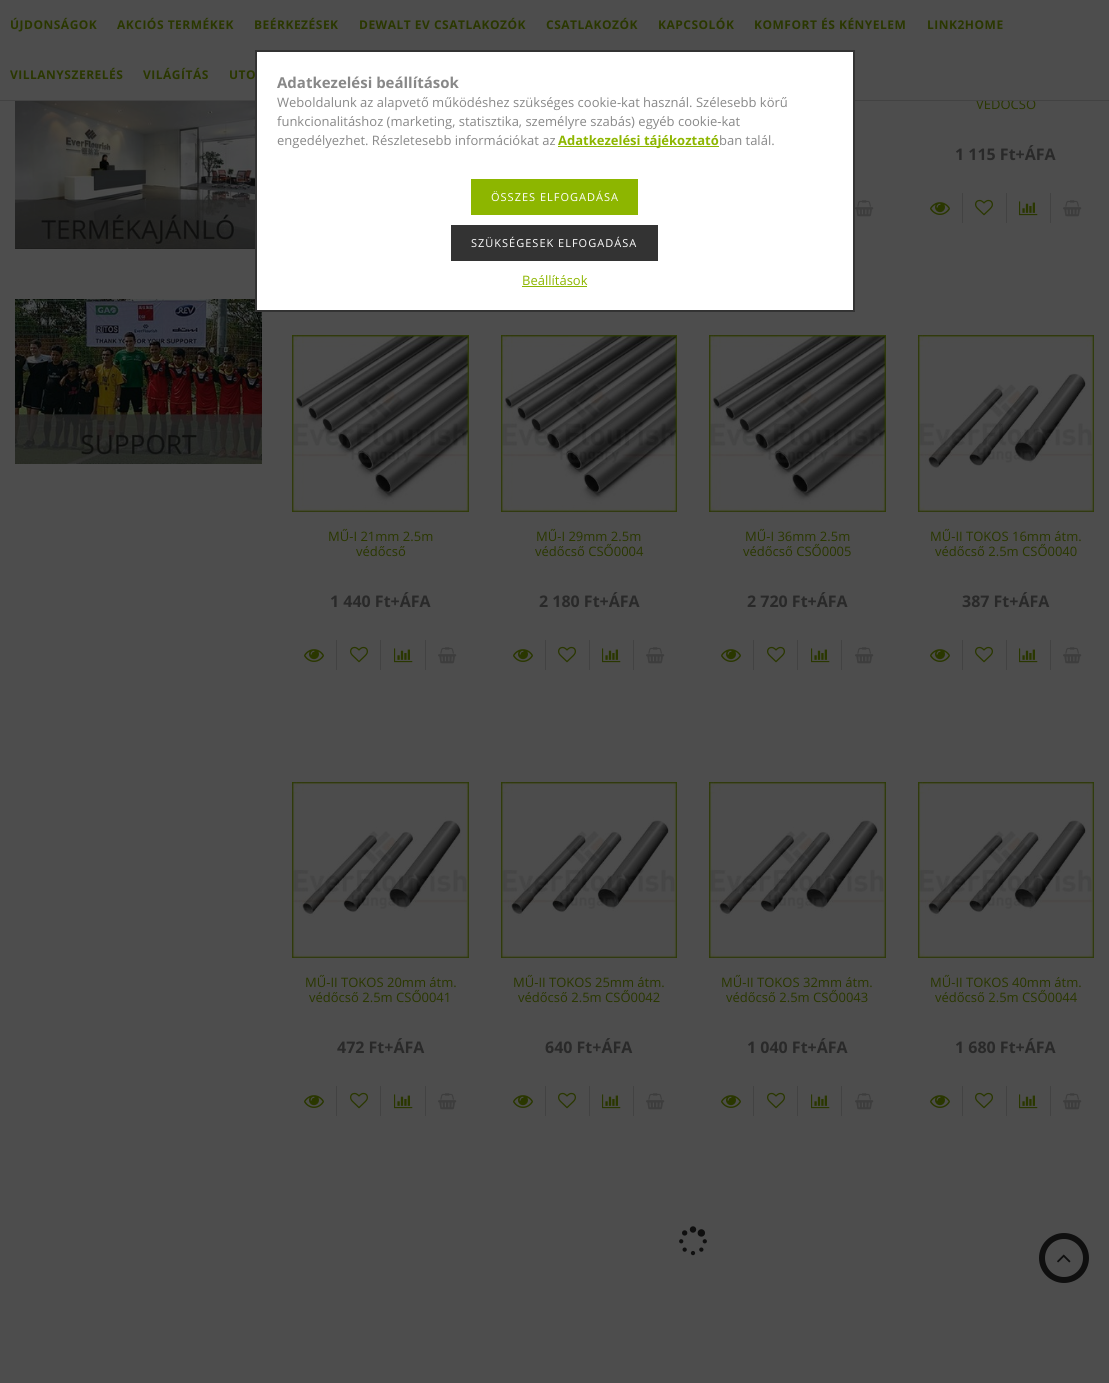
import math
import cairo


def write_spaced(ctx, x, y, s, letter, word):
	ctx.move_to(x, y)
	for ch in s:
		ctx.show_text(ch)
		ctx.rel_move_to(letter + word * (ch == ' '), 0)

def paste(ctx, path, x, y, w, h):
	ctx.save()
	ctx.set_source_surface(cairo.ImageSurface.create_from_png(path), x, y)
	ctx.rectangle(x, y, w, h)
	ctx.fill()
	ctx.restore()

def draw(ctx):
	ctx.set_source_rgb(0.302, 0.302, 0.302)
	ctx.paint()
	ctx.select_font_face('Open Sans')
	ctx.set_font_size(13)
	ctx.set_source_rgb(0.165, 0.216, 0)
	ctx.move_to(976, 109)
	ctx.show_text('VÉDŐCSŐ')
	ctx.set_source_rgb(0.302, 0.302, 0.302)
	ctx.rectangle(975, 96, 59, 4)
	ctx.fill()
	ctx.set_source_rgb(0.259, 0.259, 0.259)
	ctx.rectangle(0, 100, 1109, 1)
	ctx.fill()
	ctx.select_font_face('Open Sans', cairo.FONT_SLANT_NORMAL, cairo.FONT_WEIGHT_BOLD)
	ctx.set_font_size(12)
	ctx.set_source_rgb(0.165, 0.216, 0)
	for x, y, s in [
		(10, 29, 'ÚJDONSÁGOK'),
		(117, 29, 'AKCIÓS TERMÉKEK'),
		(254, 29, 'BEÉRKEZÉSEK'),
		(359, 29, 'DEWALT EV CSATLAKOZÓK'),
		(546, 29, 'CSATLAKOZÓK'),
		(658, 29, 'KAPCSOLÓK'),
		(754, 29, 'KOMFORT ÉS KÉNYELEM'),
		(927, 29, 'LINK2HOME'),
		(10, 79, 'VILLANYSZERELÉS'),
		(143, 79, 'VILÁGÍTÁS'),
		(229, 79, 'UTO'),
	]:
		write_spaced(ctx, x, y, s, 0.5, 0)
	paste(ctx, 'media/1.png', 15, 101, 240, 148)
	paste(ctx, 'media/2.png', 15, 299, 247, 165)
	ctx.set_font_size(16)
	ctx.set_source_rgb(0.161, 0.161, 0.161)
	ctx.move_to(955, 160)
	ctx.show_text('1 115 Ft+ÁFA')
	paste(ctx, 'media/3.png', 930, 202, 20, 13)
	ctx.set_source_rgb(0.259, 0.259, 0.259)
	ctx.rectangle(962, 193, 1, 30)
	ctx.fill()
	paste(ctx, 'media/4.png', 975, 199, 18, 17)
	ctx.rectangle(1006, 193, 1, 30)
	ctx.fill()
	paste(ctx, 'media/5.png', 1019, 201, 19, 15)
	ctx.rectangle(1050, 193, 1, 30)
	ctx.fill()
	paste(ctx, 'media/6.png', 1063, 200, 19, 17)
	paste(ctx, 'media/6.png', 855, 200, 19, 17)
	paste(ctx, 'media/7.png', 292, 335, 177, 177)
	ctx.select_font_face('Open Sans')
	ctx.set_font_size(13)
	ctx.set_source_rgb(0.165, 0.216, 0)
	ctx.move_to(328, 541)
	ctx.show_text('MŰ-I 21mm 2.5m')
	ctx.move_to(356, 556)
	ctx.show_text('védőcső')
	ctx.select_font_face('Open Sans', cairo.FONT_SLANT_NORMAL, cairo.FONT_WEIGHT_BOLD)
	ctx.set_font_size(16)
	ctx.set_source_rgb(0.161, 0.161, 0.161)
	ctx.move_to(330, 607)
	ctx.show_text('1 440 Ft+ÁFA')
	paste(ctx, 'media/3.png', 304, 649, 20, 13)
	ctx.set_source_rgb(0.259, 0.259, 0.259)
	ctx.rectangle(336, 640, 1, 30)
	ctx.fill()
	paste(ctx, 'media/4.png', 350, 646, 18, 17)
	ctx.rectangle(380, 640, 1, 30)
	ctx.fill()
	paste(ctx, 'media/5.png', 394, 648, 19, 15)
	ctx.rectangle(425, 640, 1, 30)
	ctx.fill()
	paste(ctx, 'media/6.png', 438, 647, 19, 17)
	paste(ctx, 'media/8.png', 501, 335, 176, 177)
	ctx.select_font_face('Open Sans')
	ctx.set_font_size(13)
	ctx.set_source_rgb(0.165, 0.216, 0)
	ctx.move_to(536, 541)
	ctx.show_text('MŰ-I 29mm 2.5m')
	ctx.move_to(535, 556)
	ctx.show_text('védőcső CSŐ0004')
	ctx.select_font_face('Open Sans', cairo.FONT_SLANT_NORMAL, cairo.FONT_WEIGHT_BOLD)
	ctx.set_font_size(16)
	ctx.set_source_rgb(0.161, 0.161, 0.161)
	ctx.move_to(539, 607)
	ctx.show_text('2 180 Ft+ÁFA')
	paste(ctx, 'media/3.png', 513, 649, 20, 13)
	ctx.set_source_rgb(0.259, 0.259, 0.259)
	ctx.rectangle(545, 640, 1, 30)
	ctx.fill()
	paste(ctx, 'media/4.png', 558, 646, 18, 17)
	ctx.rectangle(589, 640, 1, 30)
	ctx.fill()
	paste(ctx, 'media/5.png', 602, 648, 19, 15)
	ctx.rectangle(633, 640, 1, 30)
	ctx.fill()
	paste(ctx, 'media/6.png', 646, 647, 19, 17)
	paste(ctx, 'media/7.png', 709, 335, 177, 177)
	ctx.select_font_face('Open Sans')
	ctx.set_font_size(13)
	ctx.set_source_rgb(0.165, 0.216, 0)
	ctx.move_to(745, 541)
	ctx.show_text('MŰ-I 36mm 2.5m')
	ctx.move_to(743, 556)
	ctx.show_text('védőcső CSŐ0005')
	ctx.select_font_face('Open Sans', cairo.FONT_SLANT_NORMAL, cairo.FONT_WEIGHT_BOLD)
	ctx.set_font_size(16)
	ctx.set_source_rgb(0.161, 0.161, 0.161)
	ctx.move_to(747, 607)
	ctx.show_text('2 720 Ft+ÁFA')
	paste(ctx, 'media/3.png', 721, 649, 20, 13)
	ctx.set_source_rgb(0.259, 0.259, 0.259)
	ctx.rectangle(753, 640, 1, 30)
	ctx.fill()
	paste(ctx, 'media/4.png', 767, 646, 18, 17)
	ctx.rectangle(797, 640, 1, 30)
	ctx.fill()
	paste(ctx, 'media/5.png', 811, 648, 19, 15)
	ctx.rectangle(841, 640, 1, 30)
	ctx.fill()
	paste(ctx, 'media/6.png', 855, 647, 19, 17)
	paste(ctx, 'media/9.png', 918, 335, 176, 177)
	ctx.select_font_face('Open Sans')
	ctx.set_font_size(13)
	ctx.set_source_rgb(0.165, 0.216, 0)
	ctx.move_to(930, 541)
	ctx.show_text('MŰ-II TOKOS 16mm átm.')
	ctx.move_to(935, 556)
	ctx.show_text('védőcső 2.5m CSŐ0040')
	ctx.select_font_face('Open Sans', cairo.FONT_SLANT_NORMAL, cairo.FONT_WEIGHT_BOLD)
	ctx.set_font_size(16)
	ctx.set_source_rgb(0.161, 0.161, 0.161)
	ctx.move_to(962, 607)
	ctx.show_text('387 Ft+ÁFA')
	paste(ctx, 'media/3.png', 930, 649, 20, 13)
	ctx.set_source_rgb(0.259, 0.259, 0.259)
	ctx.rectangle(962, 640, 1, 30)
	ctx.fill()
	paste(ctx, 'media/4.png', 975, 646, 18, 17)
	ctx.rectangle(1006, 640, 1, 30)
	ctx.fill()
	paste(ctx, 'media/5.png', 1019, 648, 19, 15)
	ctx.rectangle(1050, 640, 1, 30)
	ctx.fill()
	paste(ctx, 'media/6.png', 1063, 647, 19, 17)
	paste(ctx, 'media/10.png', 292, 782, 177, 176)
	ctx.select_font_face('Open Sans')
	ctx.set_font_size(13)
	ctx.set_source_rgb(0.165, 0.216, 0)
	ctx.move_to(305, 987)
	ctx.show_text('MŰ-II TOKOS 20mm átm.')
	ctx.move_to(309, 1002)
	ctx.show_text('védőcső 2.5m CSŐ0041')
	ctx.select_font_face('Open Sans', cairo.FONT_SLANT_NORMAL, cairo.FONT_WEIGHT_BOLD)
	ctx.set_font_size(16)
	ctx.set_source_rgb(0.161, 0.161, 0.161)
	ctx.move_to(337, 1053)
	ctx.show_text('472 Ft+ÁFA')
	paste(ctx, 'media/3.png', 304, 1095, 20, 13)
	ctx.set_source_rgb(0.259, 0.259, 0.259)
	ctx.rectangle(336, 1086, 1, 30)
	ctx.fill()
	paste(ctx, 'media/4.png', 350, 1092, 18, 17)
	ctx.rectangle(380, 1086, 1, 30)
	ctx.fill()
	paste(ctx, 'media/5.png', 394, 1094, 19, 15)
	ctx.rectangle(425, 1086, 1, 30)
	ctx.fill()
	paste(ctx, 'media/6.png', 438, 1093, 19, 17)
	paste(ctx, 'media/11.png', 501, 782, 176, 176)
	ctx.select_font_face('Open Sans')
	ctx.set_font_size(13)
	ctx.set_source_rgb(0.165, 0.216, 0)
	ctx.move_to(513, 987)
	ctx.show_text('MŰ-II TOKOS 25mm átm.')
	ctx.move_to(518, 1002)
	ctx.show_text('védőcső 2.5m CSŐ0042')
	ctx.select_font_face('Open Sans', cairo.FONT_SLANT_NORMAL, cairo.FONT_WEIGHT_BOLD)
	ctx.set_font_size(16)
	ctx.set_source_rgb(0.161, 0.161, 0.161)
	ctx.move_to(545, 1053)
	ctx.show_text('640 Ft+ÁFA')
	paste(ctx, 'media/3.png', 513, 1095, 20, 13)
	ctx.set_source_rgb(0.259, 0.259, 0.259)
	ctx.rectangle(545, 1086, 1, 30)
	ctx.fill()
	paste(ctx, 'media/4.png', 558, 1092, 18, 17)
	ctx.rectangle(589, 1086, 1, 30)
	ctx.fill()
	paste(ctx, 'media/5.png', 602, 1094, 19, 15)
	ctx.rectangle(633, 1086, 1, 30)
	ctx.fill()
	paste(ctx, 'media/6.png', 646, 1093, 19, 17)
	paste(ctx, 'media/10.png', 709, 782, 177, 176)
	ctx.select_font_face('Open Sans')
	ctx.set_font_size(13)
	ctx.set_source_rgb(0.165, 0.216, 0)
	ctx.move_to(721, 987)
	ctx.show_text('MŰ-II TOKOS 32mm átm.')
	ctx.move_to(726, 1002)
	ctx.show_text('védőcső 2.5m CSŐ0043')
	ctx.select_font_face('Open Sans', cairo.FONT_SLANT_NORMAL, cairo.FONT_WEIGHT_BOLD)
	ctx.set_font_size(16)
	ctx.set_source_rgb(0.161, 0.161, 0.161)
	ctx.move_to(747, 1053)
	ctx.show_text('1 040 Ft+ÁFA')
	paste(ctx, 'media/3.png', 721, 1095, 20, 13)
	ctx.set_source_rgb(0.259, 0.259, 0.259)
	ctx.rectangle(753, 1086, 1, 30)
	ctx.fill()
	paste(ctx, 'media/4.png', 767, 1092, 18, 17)
	ctx.rectangle(797, 1086, 1, 30)
	ctx.fill()
	paste(ctx, 'media/5.png', 811, 1094, 19, 15)
	ctx.rectangle(841, 1086, 1, 30)
	ctx.fill()
	paste(ctx, 'media/6.png', 855, 1093, 19, 17)
	paste(ctx, 'media/12.png', 918, 782, 176, 176)
	ctx.select_font_face('Open Sans')
	ctx.set_font_size(13)
	ctx.set_source_rgb(0.165, 0.216, 0)
	ctx.move_to(930, 987)
	ctx.show_text('MŰ-II TOKOS 40mm átm.')
	ctx.move_to(935, 1002)
	ctx.show_text('védőcső 2.5m CSŐ0044')
	ctx.select_font_face('Open Sans', cairo.FONT_SLANT_NORMAL, cairo.FONT_WEIGHT_BOLD)
	ctx.set_font_size(16)
	ctx.set_source_rgb(0.161, 0.161, 0.161)
	ctx.move_to(955, 1053)
	ctx.show_text('1 680 Ft+ÁFA')
	paste(ctx, 'media/3.png', 930, 1095, 20, 13)
	ctx.set_source_rgb(0.259, 0.259, 0.259)
	ctx.rectangle(962, 1086, 1, 30)
	ctx.fill()
	paste(ctx, 'media/4.png', 975, 1092, 18, 17)
	ctx.rectangle(1006, 1086, 1, 30)
	ctx.fill()
	paste(ctx, 'media/5.png', 1019, 1094, 19, 15)
	ctx.rectangle(1050, 1086, 1, 30)
	ctx.fill()
	paste(ctx, 'media/6.png', 1063, 1093, 19, 17)
	paste(ctx, 'media/13.png', 679, 1226, 28, 30)
	ctx.set_source_rgb(1, 1, 1)
	ctx.rectangle(256, 51, 598, 260)
	ctx.fill_preserve()
	ctx.set_source_rgb(0.2, 0.2, 0.2)
	ctx.stroke()
	ctx.set_font_size(15)
	ctx.set_source_rgb(0.533, 0.533, 0.533)
	ctx.move_to(277, 88)
	ctx.show_text('Adatkezelési beállítások')
	ctx.select_font_face('Open Sans')
	ctx.set_font_size(13)
	for x, y, s in [
		(277, 107, 'Weboldalunk az alapvető működéshez szükséges cookie-kat használ. Szélesebb körű'),
		(277, 126, 'funkcionalitáshoz (marketing, statisztika, személyre szabás) egyéb cookie-kat'),
		(277, 145, 'engedélyezhet. Részletesebb információkat az'),
	]:
		ctx.move_to(x, y)
		ctx.show_text(s)
	ctx.set_source_rgb(0.553, 0.714, 0)
	ctx.rectangle(558, 146, 161, 1)
	ctx.fill()
	ctx.select_font_face('Open Sans', cairo.FONT_SLANT_NORMAL, cairo.FONT_WEIGHT_BOLD)
	ctx.move_to(558, 145)
	ctx.show_text('Adatkezelési tájékoztató')
	ctx.select_font_face('Open Sans')
	ctx.set_source_rgb(0.533, 0.533, 0.533)
	ctx.move_to(719, 145)
	ctx.show_text('ban talál.')
	ctx.set_source_rgb(0.553, 0.714, 0)
	ctx.rectangle(471, 179, 167, 36)
	ctx.fill()
	ctx.set_font_size(11)
	ctx.set_source_rgb(1, 1, 1)
	write_spaced(ctx, 491, 201, 'ÖSSZES ELFOGADÁSA', 1, 0)
	ctx.set_source_rgb(0.2, 0.2, 0.2)
	ctx.rectangle(451, 225, 207, 36)
	ctx.fill()
	ctx.set_source_rgb(1, 1, 1)
	write_spaced(ctx, 471, 247, 'SZÜKSÉGESEK ELFOGADÁSA', 1, 0)
	ctx.set_font_size(13)
	ctx.set_source_rgb(0.553, 0.714, 0)
	ctx.move_to(522, 285)
	ctx.show_text('Beállítások')
	ctx.rectangle(522, 286, 65, 1)
	ctx.fill()
	ctx.arc(1064, 1258, 22, 0, 2 * math.pi)
	ctx.set_source_rgb(0.059, 0.059, 0.059)
	ctx.set_line_width(6)
	ctx.stroke()
	paste(ctx, 'media/14.png', 1057, 1254, 14, 9)


surface = cairo.ImageSurface(cairo.FORMAT_RGB24, 1109, 1383)
ctx = cairo.Context(surface)
options = cairo.FontOptions()
options.set_hint_metrics(cairo.HINT_METRICS_OFF)
options.set_hint_style(cairo.HINT_STYLE_NONE)
ctx.set_font_options(options)
ctx.set_miter_limit(4)
draw(ctx)
surface.write_to_png('image.png')
